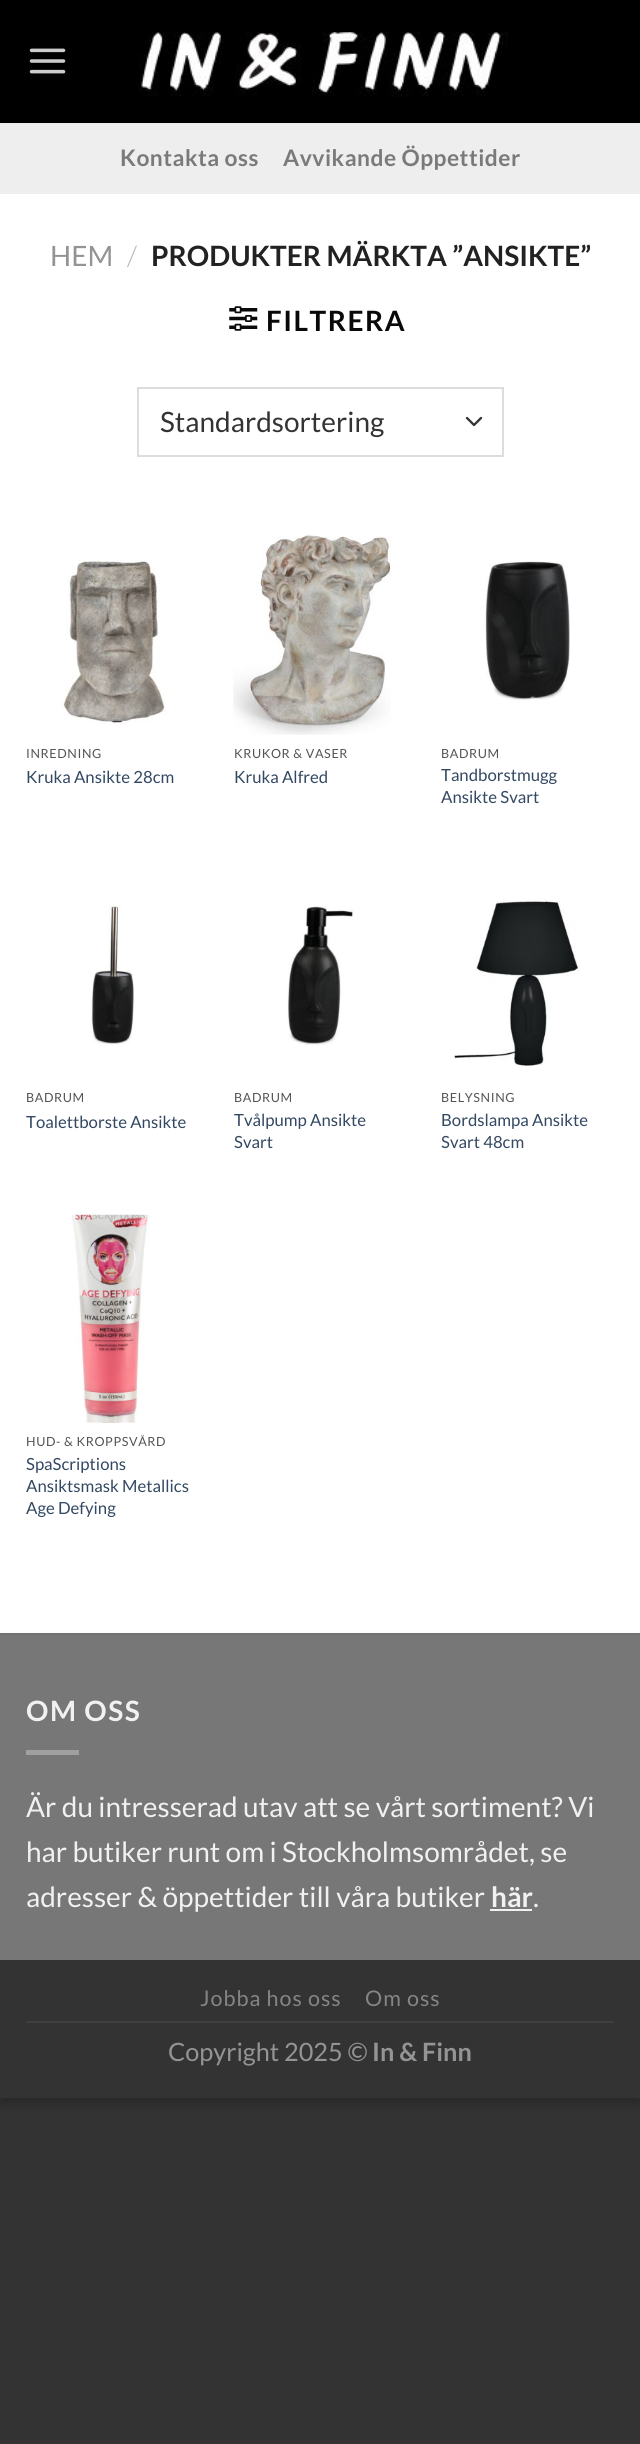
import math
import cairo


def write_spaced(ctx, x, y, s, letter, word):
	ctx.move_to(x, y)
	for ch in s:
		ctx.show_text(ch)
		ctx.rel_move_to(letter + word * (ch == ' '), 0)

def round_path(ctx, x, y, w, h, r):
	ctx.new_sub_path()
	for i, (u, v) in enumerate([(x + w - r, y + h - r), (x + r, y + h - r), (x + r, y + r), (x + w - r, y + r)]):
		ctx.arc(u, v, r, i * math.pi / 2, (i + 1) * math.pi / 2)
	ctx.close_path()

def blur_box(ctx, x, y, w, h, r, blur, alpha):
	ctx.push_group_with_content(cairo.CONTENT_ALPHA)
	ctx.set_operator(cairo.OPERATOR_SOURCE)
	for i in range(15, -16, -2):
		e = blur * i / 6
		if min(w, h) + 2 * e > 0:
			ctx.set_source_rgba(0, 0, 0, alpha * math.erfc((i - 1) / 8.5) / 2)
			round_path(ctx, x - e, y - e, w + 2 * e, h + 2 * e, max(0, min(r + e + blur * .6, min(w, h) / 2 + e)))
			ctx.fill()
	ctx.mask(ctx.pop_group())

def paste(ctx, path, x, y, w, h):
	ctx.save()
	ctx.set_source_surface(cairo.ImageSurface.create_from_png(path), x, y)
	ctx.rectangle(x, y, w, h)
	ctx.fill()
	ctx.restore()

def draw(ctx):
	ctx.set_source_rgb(0.2, 0.2, 0.2)
	ctx.paint()
	ctx.set_source_rgb(0, 0, 0)
	blur_box(ctx, 0, 5, 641, 2099, 0, 5, 0.23)
	ctx.set_source_rgb(1, 1, 1)
	ctx.rectangle(0, 194, 640, 1439)
	ctx.fill()
	ctx.set_source_rgb(0, 0, 0)
	ctx.rectangle(0, 0, 640, 123)
	ctx.fill()
	paste(ctx, 'media/1.png', 29, 48, 37, 26)
	paste(ctx, 'media/2.png', 138, 32, 371, 65)
	ctx.set_source_rgb(0.933, 0.933, 0.933)
	ctx.rectangle(0, 123, 640, 71)
	ctx.fill()
	ctx.select_font_face('Lato', cairo.FONT_SLANT_NORMAL, cairo.FONT_WEIGHT_BOLD)
	ctx.set_font_size(22.75)
	ctx.set_source_rgb(0.478, 0.478, 0.478)
	write_spaced(ctx, 120, 166, 'Kontakta oss', 0.5, 0)
	write_spaced(ctx, 283, 166, 'Avvikande Öppettider', 0.5, 0)
	ctx.select_font_face('Lato')
	ctx.set_font_size(28)
	ctx.set_source_rgb(0.58, 0.58, 0.58)
	ctx.move_to(50, 266)
	ctx.show_text('HEM')
	ctx.select_font_face('Lato Light')
	ctx.set_source_rgb(0.698, 0.698, 0.698)
	ctx.move_to(127, 266)
	ctx.show_text('/')
	ctx.select_font_face('Lato', cairo.FONT_SLANT_NORMAL, cairo.FONT_WEIGHT_BOLD)
	ctx.set_source_rgb(0.133, 0.133, 0.133)
	ctx.move_to(151, 266)
	ctx.show_text('PRODUKTER MÄRKTA ”ANSIKTE”')
	paste(ctx, 'media/3.png', 229, 306, 29, 25)
	ctx.set_source_rgb(0.039, 0.039, 0.039)
	write_spaced(ctx, 266, 331, 'FILTRERA', 1.5, 0)
	ctx.new_path()
	ctx.move_to(467, 418)
	ctx.line_to(474, 425)
	ctx.line_to(481, 418)
	ctx.set_source_rgb(0.2, 0.2, 0.2)
	ctx.set_line_width(2.3)
	ctx.set_line_cap(cairo.LINE_CAP_ROUND)
	ctx.set_line_join(cairo.LINE_JOIN_ROUND)
	ctx.stroke()
	ctx.rectangle(138, 388, 365, 68)
	ctx.set_source_rgb(0.867, 0.867, 0.867)
	ctx.set_line_width(2)
	ctx.set_line_cap(cairo.LINE_CAP_BUTT)
	ctx.set_line_join(cairo.LINE_JOIN_MITER)
	ctx.stroke()
	ctx.select_font_face('Lato')
	ctx.set_source_rgb(0.2, 0.2, 0.2)
	ctx.move_to(160, 432)
	ctx.show_text('Standardsortering')
	paste(ctx, 'media/4.png', 61, 559, 111, 166)
	ctx.set_font_size(12.6)
	ctx.set_source_rgb(0.329, 0.329, 0.329)
	write_spaced(ctx, 26, 758, 'INREDNING', 0.6, 0)
	ctx.set_font_size(16.75)
	ctx.set_source_rgb(0.2, 0.282, 0.384)
	ctx.move_to(26, 783)
	ctx.show_text('Kruka Ansikte 28cm')
	paste(ctx, 'media/5.png', 233, 535, 158, 200)
	ctx.set_font_size(12.6)
	ctx.set_source_rgb(0.329, 0.329, 0.329)
	write_spaced(ctx, 234, 758, 'KRUKOR & VASER', 0.6, 0)
	ctx.set_font_size(16.75)
	ctx.set_source_rgb(0.2, 0.282, 0.384)
	ctx.move_to(234, 783)
	ctx.show_text('Kruka Alfred')
	paste(ctx, 'media/6.png', 485, 561, 85, 139)
	ctx.set_font_size(12.6)
	ctx.set_source_rgb(0.329, 0.329, 0.329)
	write_spaced(ctx, 441, 758, 'BADRUM', 0.6, 0)
	ctx.set_font_size(16.75)
	ctx.set_source_rgb(0.2, 0.282, 0.384)
	ctx.move_to(441, 781)
	ctx.show_text('Tandborstmugg')
	ctx.move_to(441, 803)
	ctx.show_text('Ansikte Svart')
	paste(ctx, 'media/7.png', 91, 905, 44, 140)
	ctx.set_font_size(12.6)
	ctx.set_source_rgb(0.329, 0.329, 0.329)
	write_spaced(ctx, 26, 1102, 'BADRUM', 0.6, 0)
	ctx.set_font_size(16.75)
	ctx.set_source_rgb(0.2, 0.282, 0.384)
	ctx.move_to(26, 1128)
	ctx.show_text('Toalettborste Ansikte')
	paste(ctx, 'media/8.png', 287, 906, 67, 139)
	ctx.set_font_size(12.6)
	ctx.set_source_rgb(0.329, 0.329, 0.329)
	write_spaced(ctx, 234, 1102, 'BADRUM', 0.6, 0)
	ctx.set_font_size(16.75)
	ctx.set_source_rgb(0.2, 0.282, 0.384)
	ctx.move_to(234, 1126)
	ctx.show_text('Tvålpump Ansikte')
	ctx.move_to(234, 1148)
	ctx.show_text('Svart')
	paste(ctx, 'media/9.png', 452, 899, 128, 167)
	ctx.set_font_size(12.6)
	ctx.set_source_rgb(0.329, 0.329, 0.329)
	write_spaced(ctx, 441, 1102, 'BELYSNING', 0.6, 0)
	ctx.set_font_size(16.75)
	ctx.set_source_rgb(0.2, 0.282, 0.384)
	ctx.move_to(441, 1126)
	ctx.show_text('Bordslampa Ansikte')
	ctx.move_to(441, 1148)
	ctx.show_text('Svart 48cm')
	paste(ctx, 'media/10.png', 71, 1214, 79, 209)
	ctx.save()
	ctx.rectangle(26, 1435, 174, 16)
	ctx.clip()
	ctx.set_font_size(12.6)
	ctx.set_source_rgb(0.329, 0.329, 0.329)
	write_spaced(ctx, 26, 1446, 'HUD- & KROPPSVÅRD', 0.6, 0)
	ctx.restore()
	for x, y, s in [
		(26, 1470, 'SpaScriptions'),
		(26, 1492, 'Ansiktsmask Metallics'),
		(26, 1514, 'Age Defying'),
	]:
		ctx.move_to(x, y)
		ctx.show_text(s)
	ctx.set_source_rgb(0.467, 0.467, 0.467)
	ctx.rectangle(0, 1635, 640, 325)
	ctx.fill()
	ctx.set_source_rgb(0.443, 0.443, 0.443)
	ctx.rectangle(0, 1633, 640, 2)
	ctx.fill()
	ctx.select_font_face('Lato', cairo.FONT_SLANT_NORMAL, cairo.FONT_WEIGHT_BOLD)
	ctx.set_font_size(28)
	ctx.set_source_rgb(0.945, 0.945, 0.945)
	write_spaced(ctx, 26, 1721, 'OM OSS', 1.5, 0)
	ctx.set_source_rgb(0.627, 0.627, 0.627)
	ctx.rectangle(26, 1750, 53, 5)
	ctx.fill()
	ctx.select_font_face('Lato')
	ctx.set_source_rgb(0.945, 0.945, 0.945)
	for x, y, s in [
		(26, 1817, 'Är du intresserad utav att se vårt sortiment? Vi'),
		(26, 1862, 'har butiker runt om i Stockholmsområdet, se'),
		(26, 1907, 'adresser & öppettider till våra butiker'),
	]:
		ctx.move_to(x, y)
		ctx.show_text(s)
	ctx.select_font_face('Lato', cairo.FONT_SLANT_NORMAL, cairo.FONT_WEIGHT_BOLD)
	ctx.move_to(491, 1907)
	ctx.show_text('här')
	ctx.rectangle(490, 1909, 42, 2)
	ctx.fill()
	ctx.select_font_face('Lato')
	ctx.move_to(533, 1907)
	ctx.show_text('.')
	ctx.set_source_rgb(0.2, 0.2, 0.2)
	ctx.rectangle(0, 1960, 640, 138)
	ctx.fill()
	ctx.set_source_rgb(0.251, 0.251, 0.251)
	ctx.rectangle(26, 2021, 588, 2)
	ctx.fill()
	ctx.set_font_size(21.5)
	ctx.set_source_rgb(0.522, 0.522, 0.522)
	write_spaced(ctx, 200, 2006, 'Jobba hos oss', 1, 0)
	write_spaced(ctx, 365, 2006, 'Om oss', 1, 0)
	ctx.set_font_size(25.25)
	ctx.set_source_rgb(0.58, 0.58, 0.58)
	ctx.move_to(168, 2061)
	ctx.show_text('Copyright 2025 ©')
	ctx.select_font_face('Lato', cairo.FONT_SLANT_NORMAL, cairo.FONT_WEIGHT_BOLD)
	ctx.move_to(372, 2061)
	ctx.show_text('In & Finn')


surface = cairo.ImageSurface(cairo.FORMAT_RGB24, 640, 2444)
ctx = cairo.Context(surface)
options = cairo.FontOptions()
options.set_hint_metrics(cairo.HINT_METRICS_OFF)
options.set_hint_style(cairo.HINT_STYLE_NONE)
ctx.set_font_options(options)
ctx.set_miter_limit(4)
draw(ctx)
surface.write_to_png('image.png')
